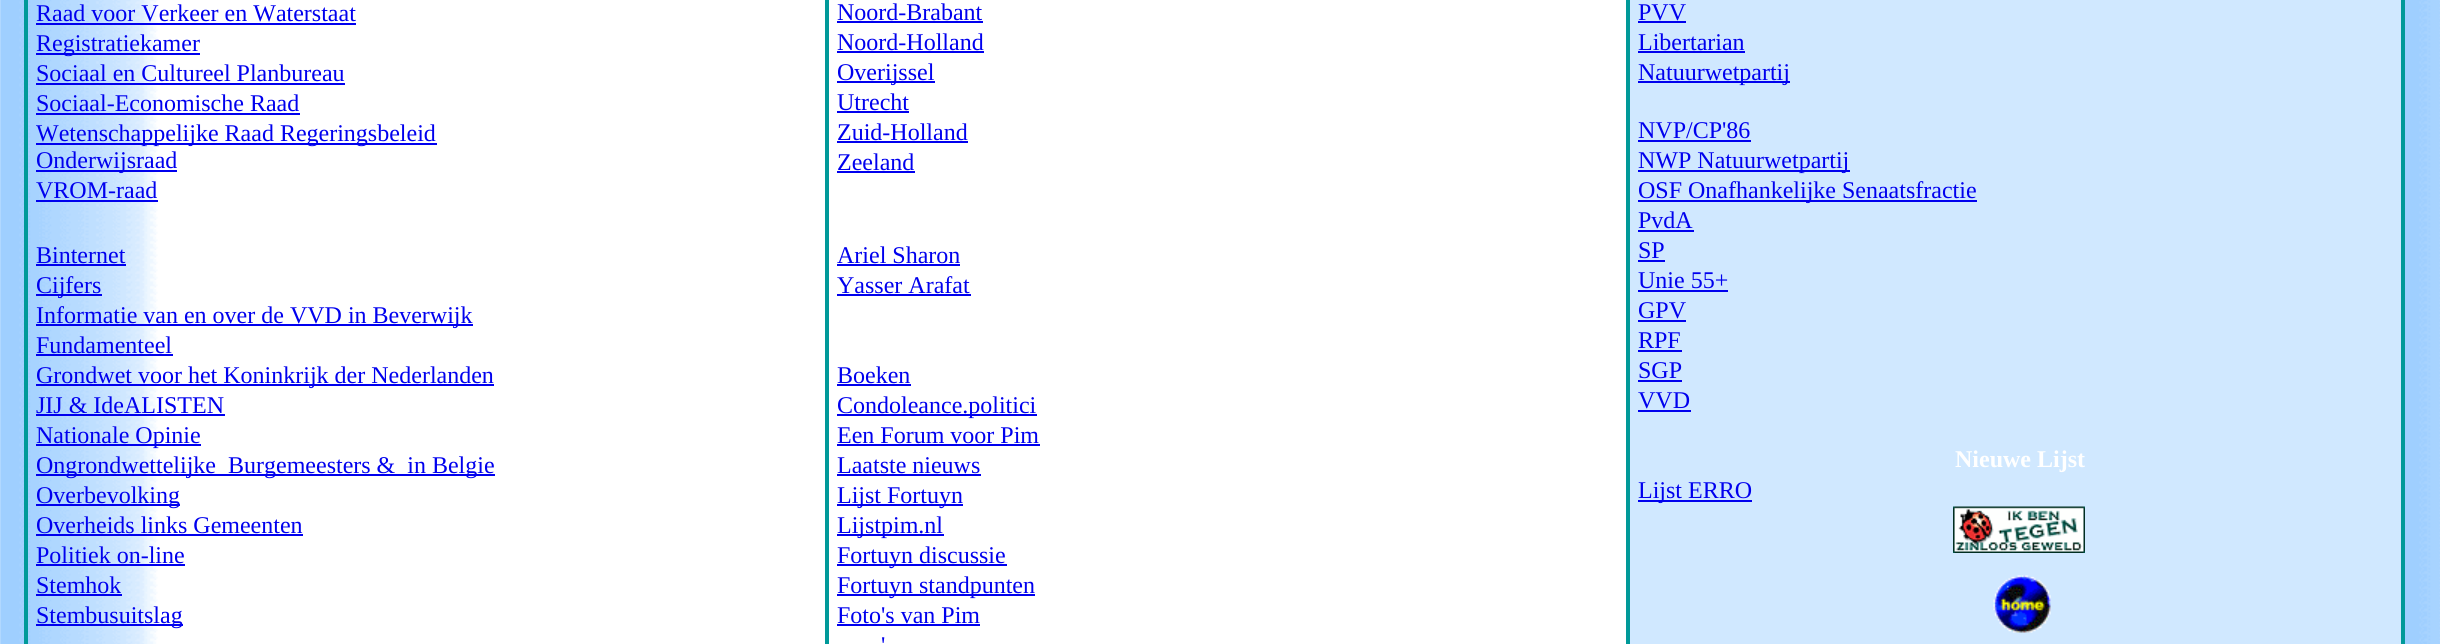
import math
import cairo


def paste(ctx, path, x, y, w, h):
	ctx.save()
	ctx.set_source_surface(cairo.ImageSurface.create_from_png(path), x, y)
	ctx.rectangle(x, y, w, h)
	ctx.fill()
	ctx.restore()

def draw(ctx):
	ctx.set_source_rgb(1, 1, 1)
	ctx.paint()
	paste(ctx, 'media/1.png', 0, 0, 2440, 644)
	ctx.rectangle(25, -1, 2379, 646)
	ctx.set_source_rgb(0, 0.6, 0.6)
	ctx.stroke()
	ctx.rectangle(27, -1, 799, 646)
	ctx.stroke()
	ctx.select_font_face('Liberation Serif')
	ctx.set_font_size(24)
	ctx.set_source_rgb(0, 0, 0.933)
	ctx.move_to(36, 21)
	ctx.show_text('Raad voor Verkeer en Waterstaat')
	ctx.rectangle(36, 23, 320, 2)
	ctx.fill()
	ctx.rectangle(36, 53, 164, 2)
	ctx.fill()
	ctx.move_to(36, 51)
	ctx.show_text('Registratiekamer')
	ctx.move_to(36, 81)
	ctx.show_text('Sociaal en Cultureel Planbureau')
	ctx.rectangle(36, 83, 309, 2)
	ctx.fill()
	ctx.move_to(36, 111)
	ctx.show_text('Sociaal-Economische Raad')
	ctx.rectangle(36, 113, 264, 2)
	ctx.fill()
	ctx.rectangle(36, 143, 401, 2)
	ctx.fill()
	ctx.move_to(36, 141)
	ctx.show_text('Wetenschappelijke Raad Regeringsbeleid')
	ctx.rectangle(36, 170, 141, 2)
	ctx.fill()
	ctx.move_to(36, 168)
	ctx.show_text('Onderwijsraad')
	ctx.move_to(36, 198)
	ctx.show_text('VROM-raad')
	ctx.rectangle(36, 200, 122, 2)
	ctx.fill()
	ctx.move_to(36, 263)
	ctx.show_text('Binternet')
	ctx.rectangle(36, 264, 90, 2)
	ctx.fill()
	ctx.rectangle(36, 294, 66, 2)
	ctx.fill()
	ctx.move_to(36, 293)
	ctx.show_text('Cijfers')
	ctx.rectangle(36, 324, 437, 2)
	ctx.fill()
	ctx.move_to(36, 323)
	ctx.show_text('Informatie van en over de VVD in Beverwijk')
	ctx.move_to(36, 353)
	ctx.show_text('Fundamenteel')
	ctx.rectangle(36, 354, 137, 2)
	ctx.fill()
	ctx.rectangle(36, 384, 458, 2)
	ctx.fill()
	ctx.move_to(36, 383)
	ctx.show_text('Grondwet voor het Koninkrijk der Nederlanden')
	ctx.move_to(36, 413)
	ctx.show_text('JIJ & IdeALISTEN')
	ctx.rectangle(36, 414, 189, 2)
	ctx.fill()
	ctx.rectangle(36, 444, 165, 2)
	ctx.fill()
	ctx.move_to(36, 443)
	ctx.show_text('Nationale Opinie')
	ctx.rectangle(36, 474, 459, 2)
	ctx.fill()
	ctx.move_to(36, 473)
	ctx.show_text('Ongrondwettelijke')
	ctx.move_to(228, 473)
	ctx.show_text('Burgemeesters &  in Belgie')
	ctx.rectangle(36, 504, 144, 2)
	ctx.fill()
	ctx.move_to(36, 503)
	ctx.show_text('Overbevolking')
	ctx.move_to(36, 533)
	ctx.show_text('Overheids links Gemeenten')
	ctx.rectangle(36, 534, 267, 2)
	ctx.fill()
	ctx.move_to(36, 563)
	ctx.show_text('Politiek on-line')
	ctx.rectangle(36, 564, 149, 2)
	ctx.fill()
	ctx.move_to(36, 593)
	ctx.show_text('Stemhok')
	ctx.rectangle(36, 594, 86, 2)
	ctx.fill()
	ctx.rectangle(36, 624, 147, 2)
	ctx.fill()
	ctx.move_to(36, 623)
	ctx.show_text('Stembusuitslag')
	ctx.rectangle(828, -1, 799, 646)
	ctx.set_source_rgb(0, 0.6, 0.6)
	ctx.stroke()
	ctx.set_source_rgb(0, 0, 0.933)
	ctx.move_to(837, 20)
	ctx.show_text('Noord-Brabant')
	ctx.rectangle(837, 21, 146, 2)
	ctx.fill()
	ctx.move_to(837, 50)
	ctx.show_text('Noord-Holland')
	ctx.rectangle(837, 51, 147, 2)
	ctx.fill()
	ctx.rectangle(837, 81, 98, 2)
	ctx.fill()
	ctx.move_to(837, 80)
	ctx.show_text('Overijssel')
	ctx.move_to(837, 110)
	ctx.show_text('Utrecht')
	ctx.rectangle(837, 111, 72, 2)
	ctx.fill()
	ctx.move_to(837, 140)
	ctx.show_text('Zuid-Holland')
	ctx.rectangle(837, 141, 131, 2)
	ctx.fill()
	ctx.move_to(837, 170)
	ctx.show_text('Zeeland')
	ctx.rectangle(837, 171, 78, 2)
	ctx.fill()
	ctx.move_to(837, 263)
	ctx.show_text('Ariel Sharon')
	ctx.rectangle(837, 264, 123, 2)
	ctx.fill()
	ctx.move_to(837, 293)
	ctx.show_text('Yasser Arafat')
	ctx.rectangle(837, 294, 134, 2)
	ctx.fill()
	ctx.move_to(837, 383)
	ctx.show_text('Boeken')
	ctx.rectangle(837, 384, 74, 2)
	ctx.fill()
	ctx.rectangle(837, 414, 200, 2)
	ctx.fill()
	ctx.move_to(837, 413)
	ctx.show_text('Condoleance.politici')
	ctx.move_to(837, 443)
	ctx.show_text('Een Forum voor Pim')
	ctx.rectangle(837, 444, 203, 2)
	ctx.fill()
	ctx.move_to(837, 473)
	ctx.show_text('Laatste nieuws')
	ctx.rectangle(837, 474, 144, 2)
	ctx.fill()
	ctx.rectangle(837, 504, 126, 2)
	ctx.fill()
	ctx.move_to(837, 503)
	ctx.show_text('Lijst Fortuyn')
	ctx.rectangle(837, 534, 107, 2)
	ctx.fill()
	ctx.move_to(837, 533)
	ctx.show_text('Lijstpim.nl')
	ctx.rectangle(837, 564, 170, 2)
	ctx.fill()
	ctx.move_to(837, 563)
	ctx.show_text('Fortuyn discussie')
	ctx.rectangle(837, 594, 198, 2)
	ctx.fill()
	ctx.move_to(837, 593)
	ctx.show_text('Fortuyn standpunten')
	ctx.move_to(837, 623)
	ctx.show_text('Foto\'s van Pim')
	ctx.rectangle(837, 624, 143, 2)
	ctx.fill()
	ctx.move_to(881, 653)
	ctx.show_text('\'')
	ctx.set_source_rgb(0.816, 0.91, 1)
	ctx.rectangle(1629, -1, 773, 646)
	ctx.fill_preserve()
	ctx.set_source_rgb(0, 0.6, 0.6)
	ctx.stroke()
	ctx.set_source_rgb(0, 0, 0.933)
	ctx.move_to(1638, 20)
	ctx.show_text('PVV')
	ctx.rectangle(1638, 21, 48, 2)
	ctx.fill()
	ctx.move_to(1638, 50)
	ctx.show_text('Libertarian')
	ctx.rectangle(1638, 51, 107, 2)
	ctx.fill()
	ctx.rectangle(1638, 81, 152, 2)
	ctx.fill()
	ctx.move_to(1638, 80)
	ctx.show_text('Natuurwetpartij')
	ctx.move_to(1638, 138)
	ctx.show_text('NVP/CP\'86')
	ctx.rectangle(1638, 140, 113, 2)
	ctx.fill()
	ctx.rectangle(1638, 170, 212, 2)
	ctx.fill()
	ctx.move_to(1638, 168)
	ctx.show_text('NWP Natuurwetpartij')
	ctx.rectangle(1638, 200, 339, 2)
	ctx.fill()
	ctx.move_to(1638, 198)
	ctx.show_text('OSF Onafhankelijke Senaatsfractie')
	ctx.move_to(1638, 228)
	ctx.show_text('PvdA')
	ctx.rectangle(1638, 230, 56, 2)
	ctx.fill()
	ctx.move_to(1638, 258)
	ctx.show_text('SP')
	ctx.rectangle(1638, 260, 27, 2)
	ctx.fill()
	ctx.move_to(1638, 288)
	ctx.show_text('Unie 55+')
	ctx.rectangle(1638, 290, 90, 2)
	ctx.fill()
	ctx.move_to(1638, 318)
	ctx.show_text('GPV')
	ctx.rectangle(1638, 320, 48, 2)
	ctx.fill()
	ctx.move_to(1638, 348)
	ctx.show_text('RPF')
	ctx.rectangle(1638, 350, 44, 2)
	ctx.fill()
	ctx.move_to(1638, 378)
	ctx.show_text('SGP')
	ctx.rectangle(1638, 380, 44, 2)
	ctx.fill()
	ctx.move_to(1638, 408)
	ctx.show_text('VVD')
	ctx.rectangle(1638, 410, 53, 2)
	ctx.fill()
	ctx.select_font_face('Liberation Serif', cairo.FONT_SLANT_NORMAL, cairo.FONT_WEIGHT_BOLD)
	ctx.set_source_rgb(1, 1, 1)
	ctx.move_to(1955, 467)
	ctx.show_text('Nieuwe Lijst')
	ctx.set_source_rgb(0, 0, 0.933)
	ctx.rectangle(1638, 500, 114, 2)
	ctx.fill()
	ctx.select_font_face('Liberation Serif')
	ctx.move_to(1638, 498)
	ctx.show_text('Lijst ERRO')
	paste(ctx, 'media/2.png', 1953, 506, 132, 47)
	paste(ctx, 'media/3.png', 1993, 575, 58, 58)


surface = cairo.ImageSurface(cairo.FORMAT_RGB24, 2440, 644)
ctx = cairo.Context(surface)
options = cairo.FontOptions()
options.set_hint_metrics(cairo.HINT_METRICS_OFF)
options.set_hint_style(cairo.HINT_STYLE_NONE)
ctx.set_font_options(options)
ctx.set_miter_limit(4)
draw(ctx)
surface.write_to_png('image.png')
